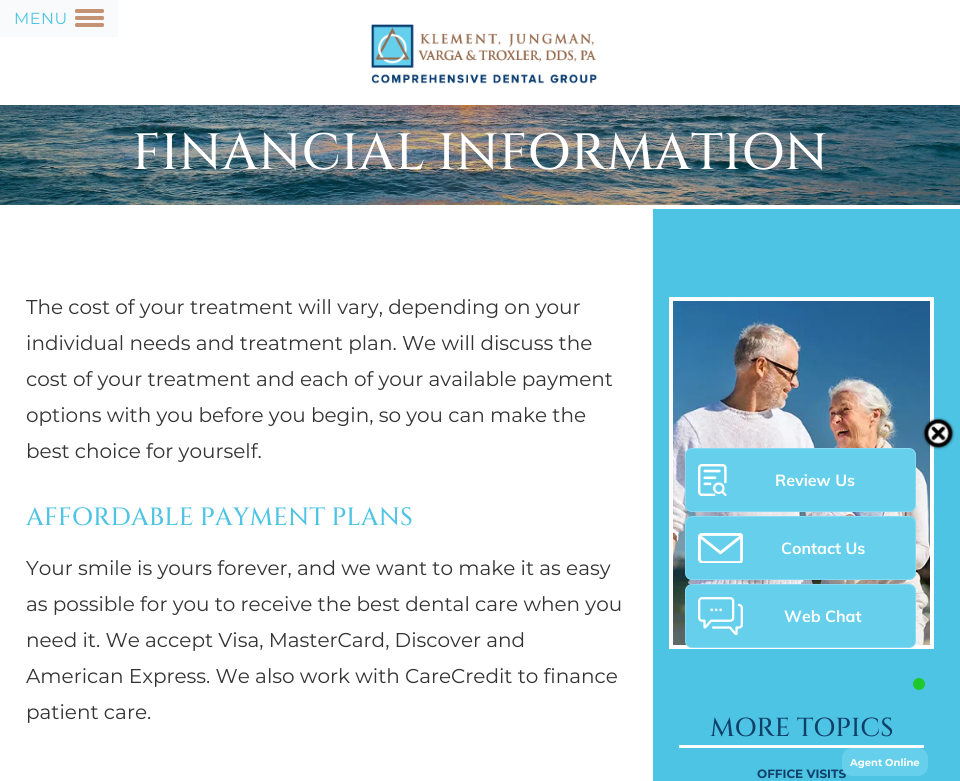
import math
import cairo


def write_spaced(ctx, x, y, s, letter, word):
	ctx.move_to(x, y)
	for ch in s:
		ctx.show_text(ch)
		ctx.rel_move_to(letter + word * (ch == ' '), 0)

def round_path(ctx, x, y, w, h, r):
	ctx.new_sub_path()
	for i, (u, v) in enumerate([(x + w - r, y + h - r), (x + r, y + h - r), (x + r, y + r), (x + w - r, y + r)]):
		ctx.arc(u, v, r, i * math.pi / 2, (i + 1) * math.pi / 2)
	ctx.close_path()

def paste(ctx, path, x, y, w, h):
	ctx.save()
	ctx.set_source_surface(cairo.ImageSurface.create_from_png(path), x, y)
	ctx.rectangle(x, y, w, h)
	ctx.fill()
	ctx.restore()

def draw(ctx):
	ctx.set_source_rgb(1, 1, 1)
	ctx.paint()
	ctx.set_source_rgb(0.973, 0.98, 0.984)
	ctx.rectangle(0, 0, 118, 37)
	ctx.fill()
	ctx.select_font_face('Montserrat')
	ctx.set_font_size(16)
	ctx.set_source_rgb(0.306, 0.769, 0.894)
	write_spaced(ctx, 14, 24, 'MENU', 0.5, 0)
	ctx.set_source_rgb(0.769, 0.576, 0.459)
	round_path(ctx, 75, 9, 29, 4, 1.5)
	ctx.fill()
	round_path(ctx, 75, 16, 29, 4, 1.5)
	ctx.fill()
	round_path(ctx, 75, 23, 29, 4, 1.5)
	ctx.fill()
	paste(ctx, 'media/1.png', 371, 24, 226, 60)
	paste(ctx, 'media/2.png', 0, 105, 960, 100)
	ctx.select_font_face('Cinzel Medium')
	ctx.set_font_size(51)
	ctx.set_source_rgb(1, 1, 1)
	ctx.move_to(132, 169)
	ctx.show_text('FINANCIAL INFORMATION')
	ctx.set_source_rgb(0.306, 0.769, 0.894)
	ctx.rectangle(653, 209, 307, 572)
	ctx.fill()
	ctx.select_font_face('Montserrat')
	ctx.set_font_size(20)
	ctx.set_source_rgb(0.2, 0.2, 0.2)
	for x, y, s in [
		(26, 314, 'The cost of your treatment will vary, depending on your'),
		(26, 350, 'individual needs and treatment plan. We will discuss the'),
		(26, 386, 'cost of your treatment and each of your available payment'),
		(26, 422, 'options with you before you begin, so you can make the'),
		(26, 458, 'best choice for yourself.'),
	]:
		ctx.move_to(x, y)
		ctx.show_text(s)
	ctx.select_font_face('Cinzel Medium')
	ctx.set_font_size(25)
	ctx.set_source_rgb(0.306, 0.769, 0.894)
	ctx.move_to(26, 525)
	ctx.show_text('AFFORDABLE PAYMENT PLANS')
	ctx.select_font_face('Montserrat')
	ctx.set_font_size(20)
	ctx.set_source_rgb(0.2, 0.2, 0.2)
	for x, y, s in [
		(26, 575, 'Your smile is yours forever, and we want to make it as easy'),
		(26, 611, 'as possible for you to receive the best dental care when you'),
		(26, 647, 'need it. We accept Visa, MasterCard, Discover and'),
		(26, 683, 'American Express. We also work with CareCredit to finance'),
		(26, 719, 'patient care.'),
	]:
		ctx.move_to(x, y)
		ctx.show_text(s)
	ctx.rectangle(671, 299, 261, 348)
	ctx.set_source_rgb(1, 1, 1)
	ctx.set_line_width(4)
	ctx.stroke()
	paste(ctx, 'media/3.png', 673, 301, 257, 344)
	ctx.rectangle(679, 745, 245, 3)
	ctx.fill()
	ctx.select_font_face('Cinzel Medium')
	ctx.set_font_size(26)
	ctx.set_source_rgb(0.059, 0.251, 0.416)
	ctx.move_to(710, 736)
	ctx.show_text('MORE TOPICS')
	ctx.select_font_face('Montserrat', cairo.FONT_SLANT_NORMAL, cairo.FONT_WEIGHT_BOLD)
	ctx.set_font_size(12)
	ctx.move_to(757, 778)
	ctx.show_text('OFFICE VISITS')
	paste(ctx, 'media/4.png', 922, 417, 33, 33)
	ctx.set_source_rgb(0.4, 0.816, 0.922)
	round_path(ctx, 685, 448, 231, 64, 7)
	ctx.fill()
	round_path(ctx, 685.5, 448.5, 230, 63, 6.5)
	ctx.set_source_rgba(1, 1, 1, 0.2)
	ctx.set_line_width(1)
	ctx.stroke()
	paste(ctx, 'media/5.png', 698, 464, 29, 32)
	ctx.select_font_face('Muli', cairo.FONT_SLANT_NORMAL, cairo.FONT_WEIGHT_BOLD)
	ctx.set_font_size(16)
	ctx.set_source_rgb(1, 1, 1)
	ctx.move_to(775, 486)
	ctx.show_text('Review Us')
	ctx.set_source_rgb(0.4, 0.816, 0.922)
	round_path(ctx, 685, 516, 231, 64, 7)
	ctx.fill()
	round_path(ctx, 685.5, 516.5, 230, 63, 6.5)
	ctx.set_source_rgba(1, 1, 1, 0.2)
	ctx.stroke()
	paste(ctx, 'media/6.png', 698, 533, 45, 30)
	ctx.set_source_rgb(1, 1, 1)
	ctx.move_to(781, 554)
	ctx.show_text('Contact Us')
	ctx.set_source_rgb(0.4, 0.816, 0.922)
	round_path(ctx, 685, 584, 231, 64, 7)
	ctx.fill()
	round_path(ctx, 685.5, 584.5, 230, 63, 6.5)
	ctx.set_source_rgba(1, 1, 1, 0.2)
	ctx.stroke()
	paste(ctx, 'media/7.png', 698, 597, 45, 38)
	ctx.set_source_rgb(1, 1, 1)
	ctx.move_to(784, 622)
	ctx.show_text('Web Chat')
	ctx.set_source_rgb(0.122, 0.788, 0.173)
	ctx.new_path()
	ctx.arc(919, 684, 6, 0, 2 * math.pi)
	ctx.fill()
	ctx.set_source_rgb(0.4, 0.816, 0.922)
	round_path(ctx, 842, 748, 86, 28, 10)
	ctx.fill()
	ctx.select_font_face('Montserrat', cairo.FONT_SLANT_NORMAL, cairo.FONT_WEIGHT_BOLD)
	ctx.set_font_size(10)
	ctx.set_source_rgb(1, 1, 1)
	ctx.move_to(850, 766)
	ctx.show_text('Agent Online')


surface = cairo.ImageSurface(cairo.FORMAT_RGB24, 960, 781)
ctx = cairo.Context(surface)
options = cairo.FontOptions()
options.set_hint_metrics(cairo.HINT_METRICS_OFF)
options.set_hint_style(cairo.HINT_STYLE_NONE)
ctx.set_font_options(options)
ctx.set_miter_limit(4)
draw(ctx)
surface.write_to_png('image.png')
